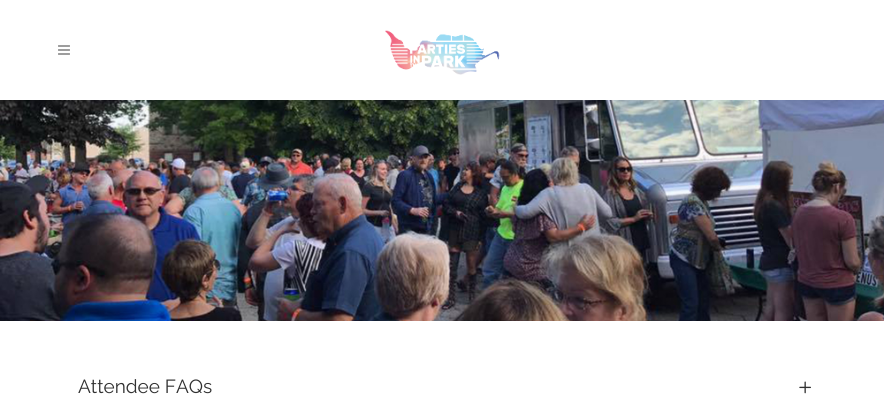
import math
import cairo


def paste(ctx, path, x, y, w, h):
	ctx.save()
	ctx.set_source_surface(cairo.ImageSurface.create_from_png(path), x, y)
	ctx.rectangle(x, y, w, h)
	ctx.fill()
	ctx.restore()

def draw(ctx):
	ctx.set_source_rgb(1, 1, 1)
	ctx.paint()
	paste(ctx, 'media/1.png', 58, 45, 12, 10)
	paste(ctx, 'media/2.png', 385, 30, 115, 45)
	paste(ctx, 'media/3.png', 0, 100, 884, 221)
	ctx.select_font_face('Raleway')
	ctx.set_font_size(19)
	ctx.set_source_rgb(0.188, 0.188, 0.188)
	ctx.move_to(78, 393)
	ctx.show_text('Attendee FAQs')
	paste(ctx, 'media/4.png', 799, 381, 12, 13)


surface = cairo.ImageSurface(cairo.FORMAT_RGB24, 884, 416)
ctx = cairo.Context(surface)
options = cairo.FontOptions()
options.set_hint_metrics(cairo.HINT_METRICS_OFF)
options.set_hint_style(cairo.HINT_STYLE_NONE)
ctx.set_font_options(options)
ctx.set_miter_limit(4)
draw(ctx)
surface.write_to_png('image.png')
